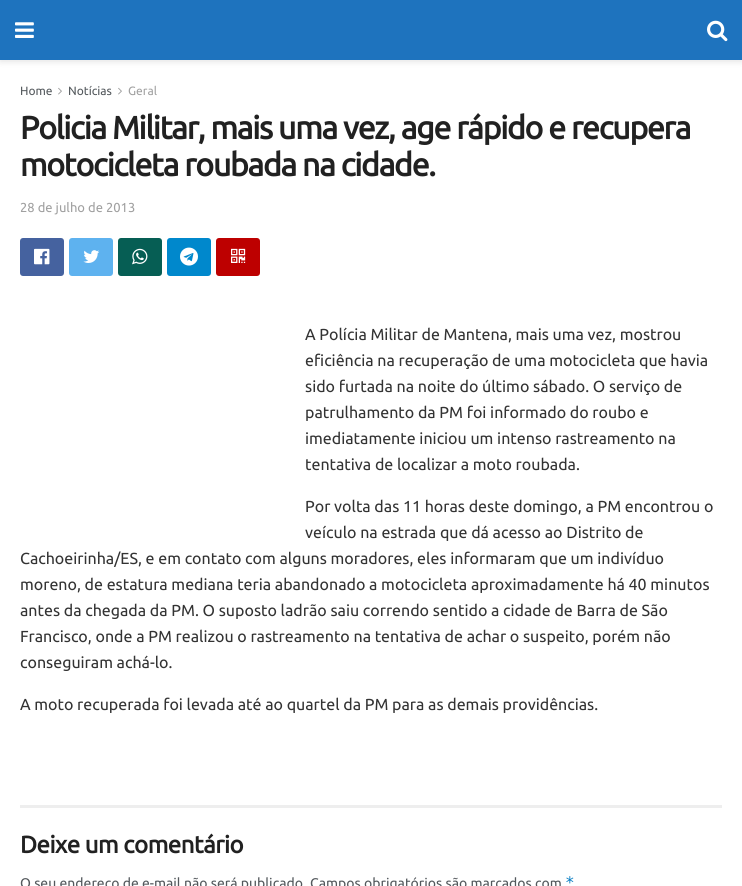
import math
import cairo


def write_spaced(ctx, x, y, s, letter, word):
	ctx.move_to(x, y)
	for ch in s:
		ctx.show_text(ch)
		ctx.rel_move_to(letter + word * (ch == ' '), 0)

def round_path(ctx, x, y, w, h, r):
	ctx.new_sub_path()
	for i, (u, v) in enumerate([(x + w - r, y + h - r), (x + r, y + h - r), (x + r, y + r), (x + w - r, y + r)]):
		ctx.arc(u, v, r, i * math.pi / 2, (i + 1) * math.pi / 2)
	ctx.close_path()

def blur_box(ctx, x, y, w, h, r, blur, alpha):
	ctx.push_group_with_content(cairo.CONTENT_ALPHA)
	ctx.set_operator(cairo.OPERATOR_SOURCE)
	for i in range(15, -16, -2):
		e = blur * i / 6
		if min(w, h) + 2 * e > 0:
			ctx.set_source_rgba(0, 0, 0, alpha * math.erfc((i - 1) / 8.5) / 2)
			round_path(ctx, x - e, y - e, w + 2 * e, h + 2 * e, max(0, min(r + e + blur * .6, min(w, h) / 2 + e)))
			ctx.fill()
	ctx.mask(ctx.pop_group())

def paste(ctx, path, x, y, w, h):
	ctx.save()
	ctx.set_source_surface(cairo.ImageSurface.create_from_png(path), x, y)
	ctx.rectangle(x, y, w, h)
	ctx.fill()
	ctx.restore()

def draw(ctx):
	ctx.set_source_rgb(1, 1, 1)
	ctx.paint()
	ctx.set_source_rgb(0, 0, 0)
	blur_box(ctx, 0, 2, 742, 60, 0, 3, 0.1)
	ctx.set_source_rgb(0.118, 0.451, 0.745)
	ctx.rectangle(0, 0, 742, 60)
	ctx.fill()
	paste(ctx, 'media/1.png', 15, 22, 19, 16)
	paste(ctx, 'media/2.png', 707, 20, 21, 22)
	ctx.select_font_face('Ubuntu')
	ctx.set_font_size(12)
	ctx.set_source_rgb(0.325, 0.345, 0.361)
	ctx.move_to(20, 95)
	ctx.show_text('Home')
	paste(ctx, 'media/3.png', 58, 87, 4, 8)
	ctx.move_to(68, 95)
	ctx.show_text('Notícias')
	paste(ctx, 'media/3.png', 118, 87, 4, 8)
	ctx.set_source_rgb(0.627, 0.627, 0.627)
	ctx.move_to(128, 95)
	ctx.show_text('Geral')
	ctx.select_font_face('Ubuntu', cairo.FONT_SLANT_NORMAL, cairo.FONT_WEIGHT_BOLD)
	ctx.set_font_size(32)
	ctx.set_source_rgb(0.129, 0.129, 0.129)
	write_spaced(ctx, 20, 139, 'Policia Militar, mais uma vez, age rápido e recupera', -1.28, 0)
	write_spaced(ctx, 20, 176, 'motocicleta roubada na cidade.', -1.28, 0)
	ctx.select_font_face('Ubuntu')
	ctx.set_font_size(13)
	ctx.set_source_rgb(0.627, 0.627, 0.627)
	ctx.move_to(20, 212)
	ctx.show_text('28 de julho de 2013')
	ctx.set_source_rgb(0.271, 0.384, 0.624)
	round_path(ctx, 20, 238, 44, 38, 3)
	ctx.fill()
	paste(ctx, 'media/4.png', 34, 248, 16, 17)
	ctx.set_source_rgb(0.369, 0.698, 0.937)
	round_path(ctx, 69, 238, 44, 38, 3)
	ctx.fill()
	paste(ctx, 'media/5.png', 83, 250, 17, 13)
	ctx.set_source_rgb(0.027, 0.369, 0.329)
	round_path(ctx, 118, 238, 44, 38, 3)
	ctx.fill()
	paste(ctx, 'media/6.png', 132, 248, 16, 17)
	ctx.set_source_rgb(0, 0.533, 0.8)
	round_path(ctx, 167, 238, 44, 38, 3)
	ctx.fill()
	paste(ctx, 'media/7.png', 180, 247, 18, 19)
	ctx.set_source_rgb(0.741, 0, 0)
	round_path(ctx, 216, 238, 44, 38, 3)
	ctx.fill()
	paste(ctx, 'media/8.png', 231, 248, 15, 15)
	ctx.set_font_size(16)
	ctx.set_source_rgb(0.2, 0.2, 0.2)
	for x, y, s in [
		(305, 340, 'A Polícia Militar de Mantena, mais uma vez, mostrou'),
		(305, 366, 'eficiência na recuperação de uma motocicleta que havia'),
		(305, 392, 'sido furtada na noite do último sábado. O serviço de'),
		(305, 418, 'patrulhamento da PM foi informado do roubo e'),
		(305, 444, 'imediatamente iniciou um intenso rastreamento na'),
		(305, 470, 'tentativa de localizar a moto roubada.'),
		(305, 512, 'Por volta das 11 horas deste domingo, a PM encontrou o'),
		(305, 538, 'veículo na estrada que dá acesso ao Distrito de'),
		(20, 564, 'Cachoeirinha/ES, e em contato com alguns moradores, eles informaram que um indivíduo'),
		(20, 590, 'moreno, de estatura mediana teria abandonado a motocicleta aproximadamente há 40 minutos'),
		(20, 616, 'antes da chegada da PM. O suposto ladrão saiu correndo sentido a cidade de Barra de São'),
		(20, 642, 'Francisco, onde a PM realizou o rastreamento na tentativa de achar o suspeito, porém não'),
		(20, 668, 'conseguiram achá-lo.'),
		(20, 710, 'A moto recuperada foi levada até ao quartel da PM para as demais providências.'),
	]:
		ctx.move_to(x, y)
		ctx.show_text(s)
	ctx.set_source_rgb(0.933, 0.933, 0.933)
	ctx.rectangle(20, 805, 702, 3)
	ctx.fill()
	ctx.select_font_face('Ubuntu', cairo.FONT_SLANT_NORMAL, cairo.FONT_WEIGHT_BOLD)
	ctx.set_font_size(24)
	ctx.set_source_rgb(0.129, 0.129, 0.129)
	write_spaced(ctx, 20, 853, 'Deixe um comentário', -0.5, 0)
	ctx.select_font_face('Ubuntu')
	ctx.set_font_size(14)
	ctx.set_source_rgb(0.325, 0.345, 0.361)
	ctx.move_to(20, 888)
	ctx.show_text('O seu endereço de e-mail não será publicado')
	ctx.move_to(310, 888)
	ctx.show_text('Campos obrigatórios são marcados com')
	ctx.select_font_face('DejaVu Sans Mono')
	ctx.set_font_size(16)
	ctx.set_source_rgb(0.031, 0.49, 0.765)
	ctx.move_to(565, 888)
	ctx.show_text('*')


surface = cairo.ImageSurface(cairo.FORMAT_RGB24, 742, 886)
ctx = cairo.Context(surface)
options = cairo.FontOptions()
options.set_hint_metrics(cairo.HINT_METRICS_OFF)
options.set_hint_style(cairo.HINT_STYLE_NONE)
ctx.set_font_options(options)
ctx.set_miter_limit(4)
draw(ctx)
surface.write_to_png('image.png')
